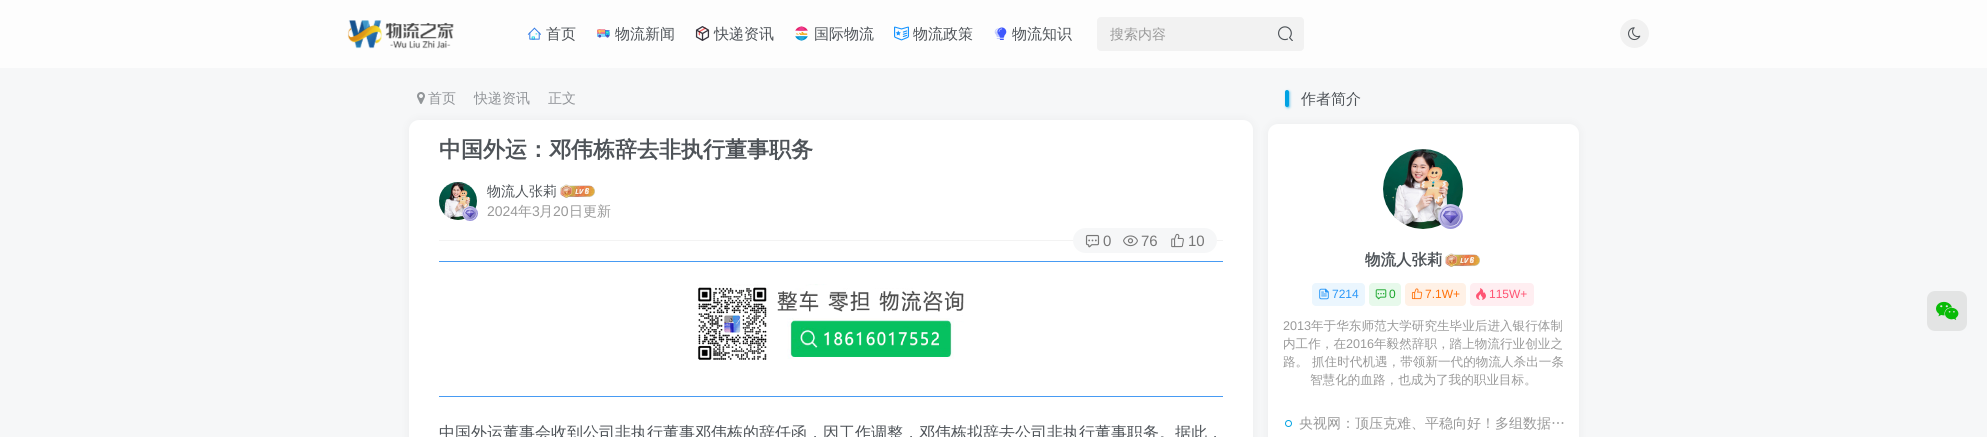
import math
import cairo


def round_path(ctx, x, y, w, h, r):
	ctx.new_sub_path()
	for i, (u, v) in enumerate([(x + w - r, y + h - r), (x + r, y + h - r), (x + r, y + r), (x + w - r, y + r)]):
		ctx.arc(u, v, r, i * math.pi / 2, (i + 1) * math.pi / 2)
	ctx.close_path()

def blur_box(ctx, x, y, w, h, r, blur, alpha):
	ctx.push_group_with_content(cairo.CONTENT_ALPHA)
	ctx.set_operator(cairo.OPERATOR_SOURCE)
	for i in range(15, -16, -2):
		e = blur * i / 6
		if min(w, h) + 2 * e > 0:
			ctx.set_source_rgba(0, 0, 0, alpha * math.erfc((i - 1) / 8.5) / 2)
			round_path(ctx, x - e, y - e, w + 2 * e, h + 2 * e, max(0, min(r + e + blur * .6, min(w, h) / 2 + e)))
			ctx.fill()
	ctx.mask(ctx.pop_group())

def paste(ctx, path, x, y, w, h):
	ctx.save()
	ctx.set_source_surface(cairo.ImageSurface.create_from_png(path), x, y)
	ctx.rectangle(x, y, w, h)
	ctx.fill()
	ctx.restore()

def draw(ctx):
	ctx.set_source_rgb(0.961, 0.965, 0.969)
	ctx.paint()
	ctx.set_source_rgb(0.992, 0.992, 0.992)
	ctx.rectangle(0, 0, 1987, 68)
	ctx.fill()
	paste(ctx, 'media/1.png', 347, 20, 107, 29)
	paste(ctx, 'media/2.png', 527, 27, 14, 13)
	ctx.select_font_face('WenQuanYi Zen Hei Medium')
	ctx.set_font_size(15)
	ctx.set_source_rgb(0.306, 0.325, 0.345)
	ctx.move_to(546, 39)
	ctx.show_text('首页')
	paste(ctx, 'media/3.png', 597, 29, 13, 9)
	ctx.move_to(615, 39)
	ctx.show_text('物流新闻')
	paste(ctx, 'media/4.png', 695, 26, 15, 15)
	ctx.move_to(714, 39)
	ctx.show_text('快递资讯')
	paste(ctx, 'media/5.png', 795, 26, 13, 15)
	ctx.move_to(814, 39)
	ctx.show_text('国际物流')
	paste(ctx, 'media/6.png', 894, 26, 15, 15)
	ctx.move_to(913, 39)
	ctx.show_text('物流政策')
	paste(ctx, 'media/7.png', 994, 27, 13, 13)
	ctx.move_to(1012, 39)
	ctx.show_text('物流知识')
	ctx.set_source_rgb(0.949, 0.949, 0.949)
	round_path(ctx, 1097, 17, 207, 34, 4)
	ctx.fill()
	ctx.set_font_size(14)
	ctx.set_source_rgb(0.6, 0.6, 0.6)
	ctx.move_to(1110, 39)
	ctx.show_text('搜索内容')
	paste(ctx, 'media/8.png', 1278, 26, 15, 15)
	ctx.set_source_rgb(0.945, 0.945, 0.945)
	ctx.arc(1634.5, 33.5, 14.5, 0, 2 * math.pi)
	ctx.fill()
	paste(ctx, 'media/9.png', 1628, 27, 13, 14)
	paste(ctx, 'media/10.png', 417, 92, 8, 12)
	ctx.set_source_rgb(0.455, 0.455, 0.455)
	blur_box(ctx, 409, 120, 844, 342, 10, 5, 0.08)
	ctx.set_source_rgb(0.569, 0.58, 0.596)
	for x, y, s in [
		(428, 103, '首页'),
		(474, 103, '快递资讯'),
		(548, 103, '正文'),
	]:
		ctx.move_to(x, y)
		ctx.show_text(s)
	ctx.set_source_rgb(1, 1, 1)
	round_path(ctx, 409, 120, 844, 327, 10)
	ctx.fill()
	ctx.select_font_face('WenQuanYi Zen Hei', cairo.FONT_SLANT_NORMAL, cairo.FONT_WEIGHT_BOLD)
	ctx.set_font_size(22)
	ctx.set_source_rgb(0.306, 0.325, 0.345)
	ctx.move_to(439, 157)
	ctx.show_text('中国外运：邓伟栋辞去非执行董事职务')
	paste(ctx, 'media/11.png', 439, 182, 38, 38)
	paste(ctx, 'media/12.png', 462, 206, 16, 15)
	ctx.save()
	ctx.rectangle(487, 181, 70, 20)
	ctx.clip()
	ctx.select_font_face('WenQuanYi Zen Hei Medium')
	ctx.set_font_size(14)
	ctx.move_to(487, 196)
	ctx.show_text('物流人张莉')
	ctx.restore()
	paste(ctx, 'media/13.png', 560, 184, 35, 14)
	ctx.select_font_face('Liberation Sans')
	ctx.set_font_size(14)
	ctx.set_source_rgb(0.6, 0.6, 0.6)
	ctx.move_to(487, 216)
	ctx.show_text('2024')
	ctx.select_font_face('WenQuanYi Zen Hei Medium')
	ctx.move_to(518, 216)
	ctx.show_text('年')
	ctx.select_font_face('Liberation Sans')
	ctx.move_to(532, 216)
	ctx.show_text('3')
	ctx.select_font_face('WenQuanYi Zen Hei Medium')
	ctx.move_to(539, 216)
	ctx.show_text('月')
	ctx.select_font_face('Liberation Sans')
	ctx.move_to(553, 216)
	ctx.show_text('20')
	ctx.select_font_face('WenQuanYi Zen Hei Medium')
	ctx.move_to(569, 216)
	ctx.show_text('日更新')
	ctx.set_source_rgb(0.953, 0.953, 0.953)
	ctx.rectangle(439, 240, 784, 1)
	ctx.fill()
	ctx.set_source_rgb(0.961, 0.965, 0.969)
	round_path(ctx, 1073, 228, 144, 25, 12.5)
	ctx.fill()
	paste(ctx, 'media/14.png', 1085, 234, 15, 14)
	ctx.select_font_face('Liberation Sans')
	ctx.set_font_size(15)
	ctx.set_source_rgb(0.467, 0.467, 0.467)
	ctx.move_to(1103, 246)
	ctx.show_text('0')
	paste(ctx, 'media/15.png', 1123, 235, 15, 12)
	ctx.move_to(1141, 246)
	ctx.show_text('76')
	paste(ctx, 'media/16.png', 1171, 233, 13, 15)
	ctx.move_to(1188, 246)
	ctx.show_text('10')
	ctx.set_source_rgb(0.278, 0.608, 0.953)
	ctx.rectangle(439, 261, 784, 1)
	ctx.fill()
	paste(ctx, 'media/17.png', 697, 284, 267, 76)
	ctx.rectangle(439, 396, 784, 1)
	ctx.fill()
	ctx.select_font_face('WenQuanYi Zen Hei Medium')
	ctx.set_font_size(16)
	ctx.set_source_rgb(0.306, 0.325, 0.345)
	ctx.move_to(439, 438)
	ctx.show_text('中国外运董事会收到公司非执行董事邓伟栋的辞任函，因工作调整，邓伟栋拟辞去公司非执行董事职务。据此，')
	ctx.set_source_rgb(0, 0.635, 0.89)
	blur_box(ctx, 1287, 92, 2, 15, 1, 1.5, 1)
	ctx.set_source_rgb(0, 0.635, 0.89)
	round_path(ctx, 1285, 90, 4, 17, 2)
	ctx.fill()
	ctx.set_font_size(15)
	ctx.set_source_rgb(0.306, 0.325, 0.345)
	ctx.move_to(1301, 104)
	ctx.show_text('作者简介')
	ctx.set_source_rgb(0.455, 0.455, 0.455)
	blur_box(ctx, 1268, 124, 311, 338, 10, 5, 0.08)
	ctx.set_source_rgb(1, 1, 1)
	round_path(ctx, 1268, 124, 311, 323, 10)
	ctx.fill()
	paste(ctx, 'media/18.png', 1383, 149, 80, 80)
	paste(ctx, 'media/19.png', 1438, 204, 25, 25)
	ctx.select_font_face('WenQuanYi Zen Hei', cairo.FONT_SLANT_NORMAL, cairo.FONT_WEIGHT_BOLD)
	ctx.set_font_size(15.5)
	ctx.set_source_rgb(0.306, 0.325, 0.345)
	ctx.move_to(1365, 265)
	ctx.show_text('物流人张莉')
	paste(ctx, 'media/13.png', 1445, 253, 35, 14)
	ctx.set_source_rgb(0.918, 0.961, 0.996)
	round_path(ctx, 1312, 283, 53, 23, 4)
	ctx.fill()
	paste(ctx, 'media/20.png', 1319, 288, 10, 12)
	ctx.select_font_face('Liberation Sans')
	ctx.set_font_size(12)
	ctx.set_source_rgb(0.161, 0.592, 0.969)
	ctx.move_to(1332, 298)
	ctx.show_text('7214')
	ctx.set_source_rgb(0.906, 0.973, 0.918)
	round_path(ctx, 1369, 283, 32, 23, 4)
	ctx.fill()
	paste(ctx, 'media/21.png', 1375, 289, 12, 11)
	ctx.set_source_rgb(0.094, 0.647, 0.165)
	ctx.move_to(1389, 298)
	ctx.show_text('0')
	ctx.set_source_rgb(1, 0.945, 0.902)
	round_path(ctx, 1405, 283, 61, 23, 4)
	ctx.fill()
	paste(ctx, 'media/22.png', 1411, 288, 12, 12)
	ctx.set_source_rgb(1, 0.435, 0.024)
	ctx.move_to(1425, 298)
	ctx.show_text('7.1W+')
	ctx.set_source_rgb(1, 0.933, 0.945)
	round_path(ctx, 1470, 283, 64, 23, 4)
	ctx.fill()
	paste(ctx, 'media/23.png', 1476, 288, 10, 12)
	ctx.set_source_rgb(1, 0.329, 0.451)
	ctx.move_to(1489, 298)
	ctx.show_text('115W+')
	ctx.set_font_size(12.6)
	ctx.set_source_rgb(0.6, 0.6, 0.6)
	ctx.move_to(1283, 330)
	ctx.show_text('2013')
	ctx.select_font_face('WenQuanYi Zen Hei Medium')
	ctx.move_to(1311, 330)
	ctx.show_text('年于华东师范大学研究生毕业后进入银行体制')
	ctx.move_to(1283, 348)
	ctx.show_text('内工作，在')
	ctx.select_font_face('Liberation Sans')
	ctx.move_to(1346, 348)
	ctx.show_text('2016')
	ctx.select_font_face('WenQuanYi Zen Hei Medium')
	for x, y, s in [
		(1374, 348, '年毅然辞职，踏上物流行业创业之'),
		(1283, 366, '路。 抓住时代机遇，带领新一代的物流人杀出一条'),
		(1310, 384, '智慧化的血路，也成为了我的职业目标。'),
	]:
		ctx.move_to(x, y)
		ctx.show_text(s)
	ctx.new_path()
	ctx.arc(1288.5, 423.5, 3, 0, 2 * math.pi)
	ctx.set_source_rgb(0, 0.635, 0.89)
	ctx.set_line_width(1)
	ctx.stroke()
	ctx.set_font_size(14)
	ctx.set_source_rgb(0.6, 0.6, 0.6)
	ctx.move_to(1299, 428)
	ctx.show_text('央视网：顶压克难、平稳向好！多组数据…')
	ctx.set_source_rgb(0.89, 0.894, 0.894)
	round_path(ctx, 1927, 291, 40, 40, 8)
	ctx.fill()
	paste(ctx, 'media/24.png', 1936, 301, 23, 19)


surface = cairo.ImageSurface(cairo.FORMAT_RGB24, 1987, 437)
ctx = cairo.Context(surface)
options = cairo.FontOptions()
options.set_hint_metrics(cairo.HINT_METRICS_OFF)
options.set_hint_style(cairo.HINT_STYLE_NONE)
ctx.set_font_options(options)
ctx.set_miter_limit(4)
draw(ctx)
surface.write_to_png('image.png')
